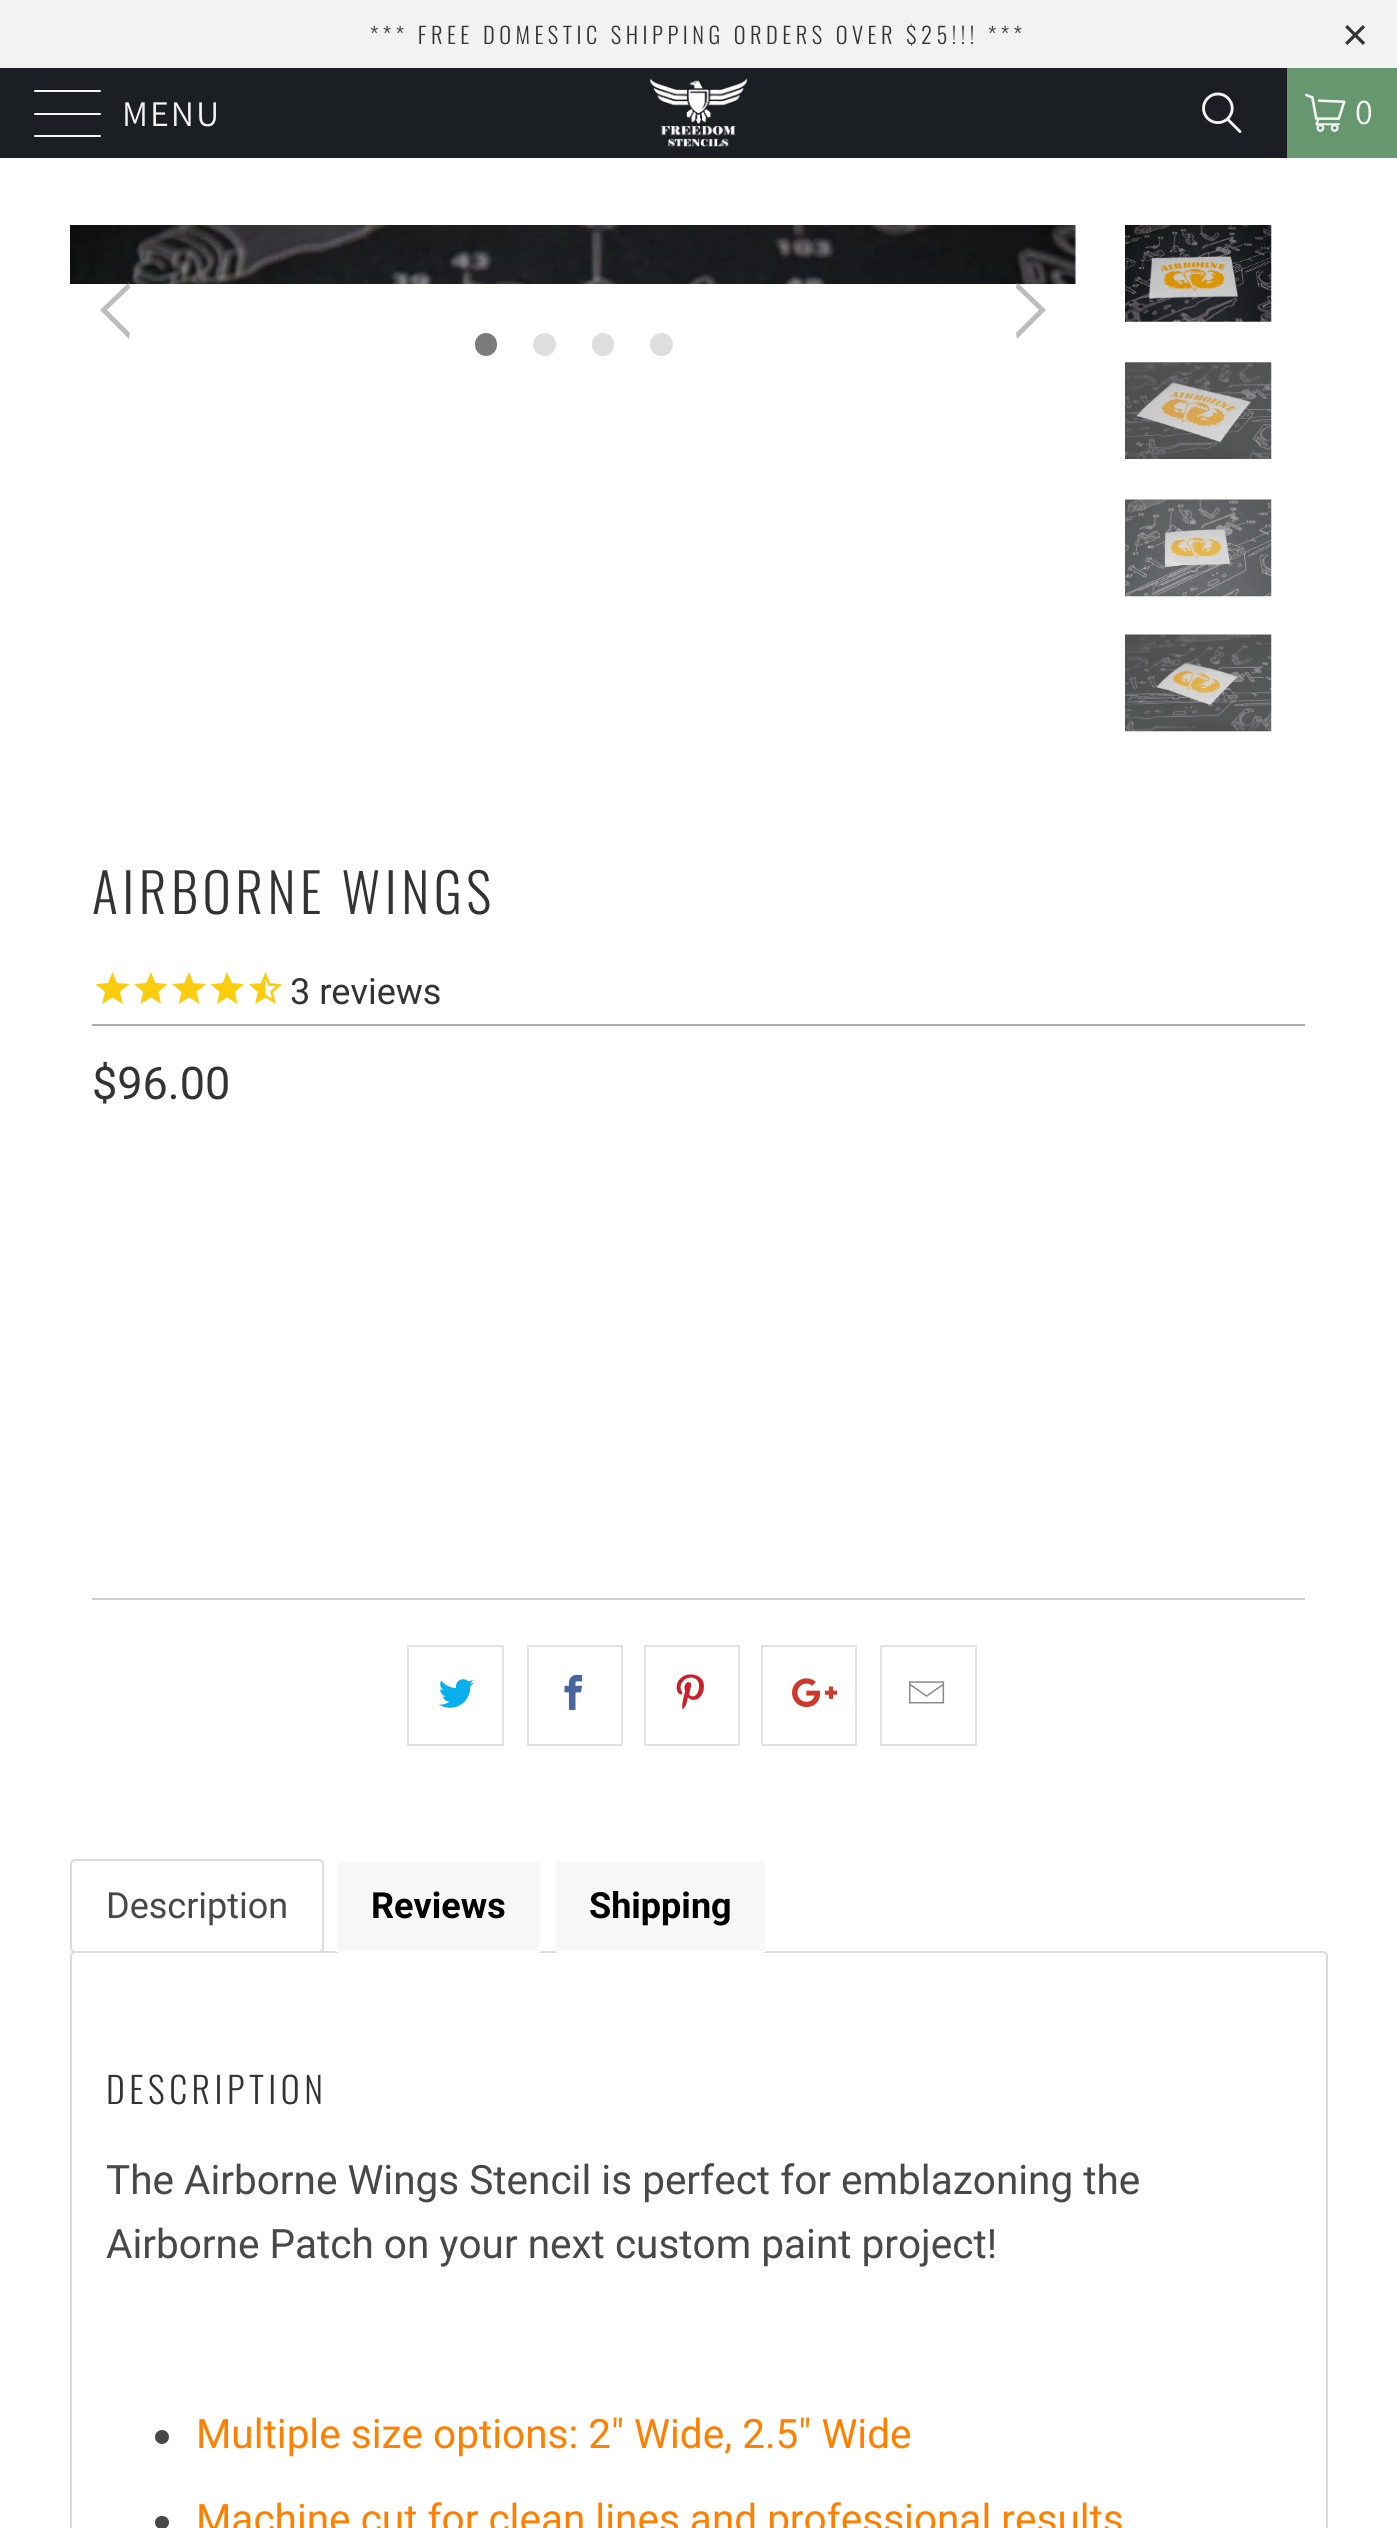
import math
import cairo


def write_spaced(ctx, x, y, s, letter, word):
	ctx.move_to(x, y)
	for ch in s:
		ctx.show_text(ch)
		ctx.rel_move_to(letter + word * (ch == ' '), 0)

def round_path(ctx, x, y, w, h, r):
	ctx.new_sub_path()
	for i, (u, v) in enumerate([(x + w - r, y + h - r), (x + r, y + h - r), (x + r, y + r), (x + w - r, y + r)]):
		ctx.arc(u, v, r, i * math.pi / 2, (i + 1) * math.pi / 2)
	ctx.close_path()

def paste(ctx, path, x, y, w, h):
	ctx.save()
	ctx.set_source_surface(cairo.ImageSurface.create_from_png(path), x, y)
	ctx.rectangle(x, y, w, h)
	ctx.fill()
	ctx.restore()

def draw(ctx):
	ctx.set_source_rgb(1, 1, 1)
	ctx.paint()
	ctx.set_source_rgb(0.949, 0.949, 0.949)
	ctx.rectangle(0, 0, 1397, 68)
	ctx.fill()
	ctx.select_font_face('Oswald Light')
	ctx.set_font_size(22.5)
	ctx.set_source_rgb(0.2, 0.2, 0.2)
	write_spaced(ctx, 370, 44, '*** FREE DOMESTIC SHIPPING ORDERS OVER $25!!! ***', 4.5, 0)
	ctx.select_font_face('Liberation Sans')
	ctx.set_font_size(45)
	write_spaced(ctx, 1342, 50, '×', 4.5, 0)
	ctx.set_source_rgb(0.106, 0.122, 0.137)
	ctx.rectangle(0, 68, 1287, 90)
	ctx.fill()
	ctx.set_source_rgb(0.957, 0.957, 0.957)
	round_path(ctx, 34, 90, 67, 2, 1)
	ctx.fill()
	round_path(ctx, 34, 113, 67, 2, 1)
	ctx.fill()
	round_path(ctx, 34, 135, 67, 2, 1)
	ctx.fill()
	ctx.select_font_face('Assistant')
	ctx.set_font_size(36)
	write_spaced(ctx, 122, 126, 'MENU', 2, 0)
	paste(ctx, 'media/1.png', 650, 78, 97, 69)
	paste(ctx, 'media/2.png', 1202, 92, 40, 41)
	ctx.set_source_rgb(0.404, 0.592, 0.431)
	ctx.rectangle(1287, 68, 110, 90)
	ctx.fill()
	paste(ctx, 'media/3.png', 1305, 93, 41, 39)
	ctx.set_source_rgb(0.957, 0.957, 0.957)
	write_spaced(ctx, 1355, 124, '0', 2, 0)
	paste(ctx, 'media/4.png', 70, 225, 1006, 59)
	ctx.set_source_rgba(0.486, 0.486, 0.486, 0.5)
	ctx.new_path()
	ctx.move_to(100, 310)
	ctx.line_to(129, 339)
	ctx.line_to(130, 333)
	ctx.line_to(107, 310)
	ctx.line_to(130, 288)
	ctx.line_to(129, 282)
	ctx.close_path()
	ctx.fill()
	ctx.new_path()
	ctx.move_to(1046, 310)
	ctx.line_to(1017, 282)
	ctx.line_to(1016, 288)
	ctx.line_to(1039, 310)
	ctx.line_to(1016, 333)
	ctx.line_to(1017, 339)
	ctx.close_path()
	ctx.fill()
	ctx.set_source_rgb(0.486, 0.486, 0.486)
	round_path(ctx, 475, 333, 22, 23, 11)
	ctx.fill()
	ctx.set_source_rgb(0.871, 0.871, 0.871)
	ctx.arc(544.5, 344.5, 11.5, 0, 2 * math.pi)
	ctx.fill()
	round_path(ctx, 592, 333, 22, 23, 11)
	ctx.fill()
	ctx.arc(661.5, 344.5, 11.5, 0, 2 * math.pi)
	ctx.fill()
	paste(ctx, 'media/5.png', 1125, 225, 147, 97)
	paste(ctx, 'media/6.png', 1125, 362, 147, 97)
	paste(ctx, 'media/7.png', 1125, 499, 147, 98)
	paste(ctx, 'media/8.png', 1125, 634, 147, 98)
	ctx.select_font_face('Oswald Light')
	ctx.set_font_size(54)
	ctx.set_source_rgb(0.2, 0.2, 0.2)
	write_spaced(ctx, 92, 914, 'AIRBORNE WINGS', 4.5, 0)
	ctx.set_source_rgb(0.988, 0.804, 0.059)
	ctx.new_path()
	ctx.move_to(112.5, 997.5)
	ctx.line_to(102, 1004)
	ctx.line_to(105, 992)
	ctx.line_to(95.5, 984)
	ctx.line_to(108, 983)
	ctx.line_to(112.5, 972)
	ctx.line_to(117, 983)
	ctx.line_to(129.5, 984)
	ctx.line_to(120, 992)
	ctx.line_to(123, 1004)
	ctx.close_path()
	ctx.fill()
	ctx.new_path()
	ctx.move_to(151, 997.5)
	ctx.line_to(140.5, 1004)
	ctx.line_to(143, 992)
	ctx.line_to(134, 984)
	ctx.line_to(146, 983)
	ctx.line_to(151, 972)
	ctx.line_to(155.5, 983)
	ctx.line_to(167.5, 984)
	ctx.line_to(158.5, 992)
	ctx.line_to(161, 1004)
	ctx.close_path()
	ctx.fill()
	ctx.new_path()
	ctx.move_to(189, 997.5)
	ctx.line_to(178.5, 1004)
	ctx.line_to(181.5, 992)
	ctx.line_to(172, 984)
	ctx.line_to(184.5, 983)
	ctx.line_to(189, 972)
	ctx.line_to(193.5, 983)
	ctx.line_to(206, 984)
	ctx.line_to(196.5, 992)
	ctx.line_to(199.5, 1004)
	ctx.close_path()
	ctx.fill()
	ctx.new_path()
	ctx.move_to(227, 997.5)
	ctx.line_to(217, 1004)
	ctx.line_to(219.5, 992)
	ctx.line_to(210.5, 984)
	ctx.line_to(222.5, 983)
	ctx.line_to(227, 972)
	ctx.line_to(232, 983)
	ctx.line_to(244, 984)
	ctx.line_to(235, 992)
	ctx.line_to(237.5, 1004)
	ctx.close_path()
	ctx.fill()
	paste(ctx, 'media/9.png', 248, 972, 35, 32)
	ctx.select_font_face('Roboto')
	ctx.set_font_size(36)
	ctx.set_source_rgb(0.2, 0.2, 0.2)
	ctx.move_to(290, 1004)
	ctx.show_text('3 reviews')
	ctx.set_source_rgb(0.667, 0.667, 0.667)
	ctx.rectangle(92, 1024, 1213, 2)
	ctx.fill()
	ctx.set_font_size(45)
	ctx.set_source_rgb(0.2, 0.2, 0.2)
	ctx.move_to(92, 1099)
	ctx.show_text('$96.00')
	ctx.set_source_rgb(0.8, 0.8, 0.8)
	ctx.rectangle(92, 1598, 1213, 2)
	ctx.fill()
	ctx.rectangle(408, 1646, 95, 99)
	ctx.set_source_rgb(0.886, 0.886, 0.886)
	ctx.stroke()
	paste(ctx, 'media/10.png', 439, 1679, 35, 29)
	ctx.rectangle(528, 1646, 94, 99)
	ctx.stroke()
	paste(ctx, 'media/11.png', 564, 1674, 19, 36)
	ctx.rectangle(645, 1646, 94, 99)
	ctx.stroke()
	paste(ctx, 'media/12.png', 676, 1674, 28, 36)
	ctx.rectangle(762, 1646, 94, 99)
	ctx.stroke()
	paste(ctx, 'media/13.png', 792, 1678, 46, 30)
	ctx.rectangle(881, 1646, 95, 99)
	ctx.stroke()
	paste(ctx, 'media/14.png', 909, 1681, 36, 23)
	round_path(ctx, 71, 1952, 1256, 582, 4)
	ctx.set_source_rgb(0.863, 0.863, 0.863)
	ctx.stroke()
	ctx.set_source_rgb(1, 1, 1)
	round_path(ctx, 71, 1860, 252, 92, 4)
	ctx.fill_preserve()
	ctx.set_source_rgb(0.863, 0.863, 0.863)
	ctx.stroke()
	ctx.set_font_size(36)
	ctx.set_source_rgb(0.282, 0.282, 0.282)
	ctx.move_to(106, 1918)
	ctx.show_text('Description')
	ctx.set_source_rgb(0.965, 0.965, 0.965)
	round_path(ctx, 336, 1860, 205, 92, 4)
	ctx.fill_preserve()
	ctx.set_source_rgb(1, 1, 1)
	ctx.stroke()
	ctx.select_font_face('Roboto', cairo.FONT_SLANT_NORMAL, cairo.FONT_WEIGHT_BOLD)
	ctx.set_source_rgb(0, 0, 0)
	ctx.move_to(371, 1918)
	ctx.show_text('Reviews')
	ctx.set_source_rgb(0.965, 0.965, 0.965)
	round_path(ctx, 555, 1860, 211, 92, 4)
	ctx.fill_preserve()
	ctx.set_source_rgb(1, 1, 1)
	ctx.stroke()
	ctx.set_source_rgb(0, 0, 0)
	ctx.move_to(589, 1918)
	ctx.show_text('Shipping')
	ctx.select_font_face('Oswald Light')
	ctx.set_source_rgb(0.2, 0.2, 0.2)
	write_spaced(ctx, 106, 2104, 'DESCRIPTION', 4.5, 0)
	ctx.select_font_face('Roboto')
	ctx.set_font_size(40.5)
	ctx.set_source_rgb(0.282, 0.282, 0.282)
	ctx.move_to(106, 2194)
	ctx.show_text('The Airborne Wings Stencil is perfect for emblazoning the')
	ctx.move_to(106, 2258)
	ctx.show_text('Airborne Patch on your next custom paint project!')
	ctx.new_path()
	ctx.arc(162, 2437, 7, 0, 2 * math.pi)
	ctx.fill()
	ctx.set_source_rgb(1, 0.502, 0)
	ctx.move_to(196, 2448)
	ctx.show_text('Multiple size options: 2" Wide, 2.5" Wide')
	ctx.set_source_rgb(0.282, 0.282, 0.282)
	round_path(ctx, 155, 2516, 14, 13, 6.5)
	ctx.fill()
	ctx.set_source_rgb(1, 0.502, 0)
	ctx.move_to(196, 2533)
	ctx.show_text('Machine cut for clean lines and professional results')


surface = cairo.ImageSurface(cairo.FORMAT_RGB24, 1397, 2528)
ctx = cairo.Context(surface)
options = cairo.FontOptions()
options.set_hint_metrics(cairo.HINT_METRICS_OFF)
options.set_hint_style(cairo.HINT_STYLE_NONE)
ctx.set_font_options(options)
ctx.set_miter_limit(4)
draw(ctx)
surface.write_to_png('image.png')
